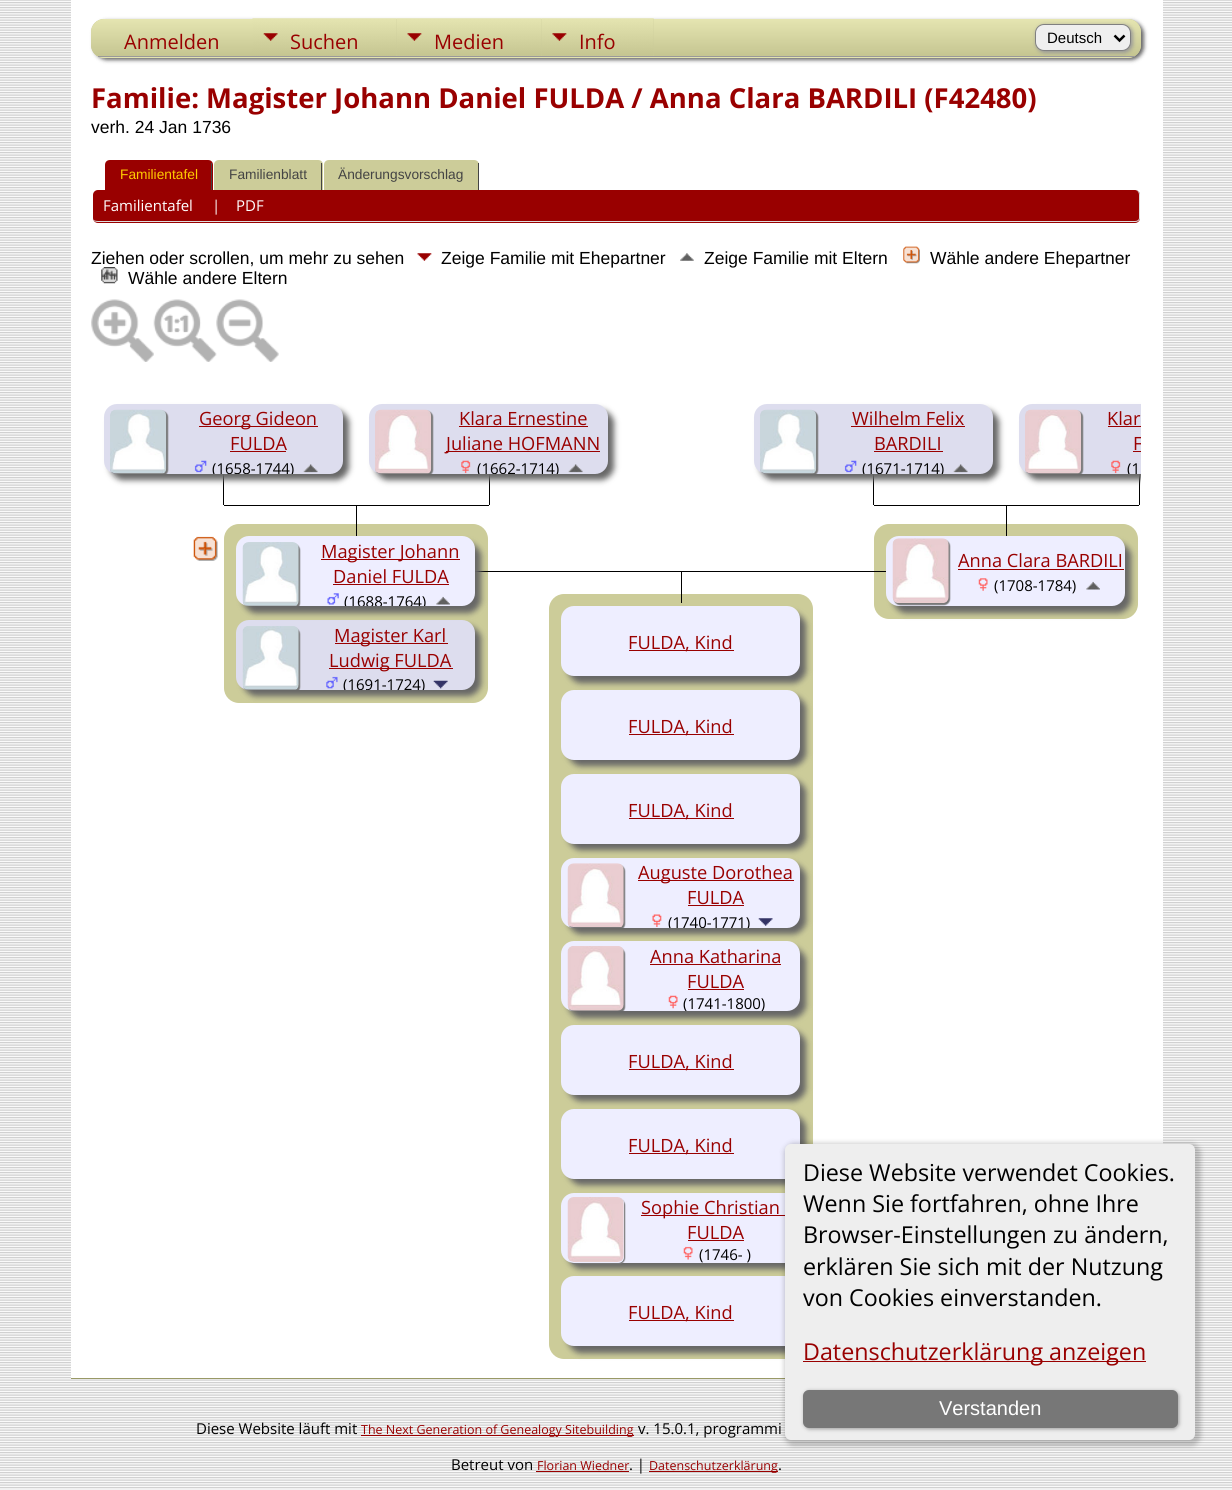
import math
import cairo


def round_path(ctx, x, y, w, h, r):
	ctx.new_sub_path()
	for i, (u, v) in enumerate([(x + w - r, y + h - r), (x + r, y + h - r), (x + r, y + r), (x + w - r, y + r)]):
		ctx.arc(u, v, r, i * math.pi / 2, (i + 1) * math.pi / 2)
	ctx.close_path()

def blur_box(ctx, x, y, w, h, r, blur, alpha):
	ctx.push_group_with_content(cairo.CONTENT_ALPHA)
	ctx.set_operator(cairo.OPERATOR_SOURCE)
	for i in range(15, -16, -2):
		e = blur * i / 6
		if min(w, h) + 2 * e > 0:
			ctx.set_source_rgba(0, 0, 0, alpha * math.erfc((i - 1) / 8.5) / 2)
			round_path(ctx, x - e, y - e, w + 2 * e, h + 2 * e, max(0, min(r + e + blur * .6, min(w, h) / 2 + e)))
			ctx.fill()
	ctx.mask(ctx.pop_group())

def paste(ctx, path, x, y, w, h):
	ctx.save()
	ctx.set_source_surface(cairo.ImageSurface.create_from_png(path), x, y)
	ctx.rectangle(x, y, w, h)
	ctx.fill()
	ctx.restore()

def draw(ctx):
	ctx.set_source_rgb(1, 1, 1)
	ctx.paint()
	paste(ctx, 'media/1.png', 0, 0, 1232, 1490)
	ctx.set_source_rgb(1, 1, 1)
	ctx.rectangle(71, 0, 1092, 1378)
	ctx.fill()
	ctx.set_source_rgb(0.6, 0.6, 0.4)
	ctx.rectangle(71, 1378, 714, 1)
	ctx.fill()
	ctx.set_source_rgb(0.4, 0.4, 0.4)
	blur_box(ctx, 94, 21, 1050, 39, 13, 2, 1)
	ctx.set_source_rgb(0.8, 0.8, 0.6)
	round_path(ctx, 91, 19, 1050, 39, 13)
	ctx.fill()
	ctx.save()
	round_path(ctx, 91, 19, 1050, 39, 13)
	ctx.clip()
	gradient = cairo.LinearGradient(616, 19, 616, 56)
	gradient.add_color_stop_rgba(0, 0.898, 0.898, 0.694, 1)
	gradient.add_color_stop_rgba(1, 0.773, 0.773, 0.569, 1)
	ctx.set_source(gradient)
	ctx.new_path()
	ctx.move_to(104, 19)
	ctx.line_to(1128, 19)
	ctx.curve_to(1135, 19, 1141, 25, 1141, 32)
	ctx.line_to(1141, 56)
	ctx.line_to(91, 56)
	ctx.line_to(91, 32)
	ctx.curve_to(91, 25, 97, 19, 104, 19)
	ctx.close_path()
	ctx.fill()
	gradient = cairo.LinearGradient(616, 56, 616, 94)
	gradient.add_color_stop_rgba(0, 0.898, 0.898, 0.694, 1)
	gradient.add_color_stop_rgba(1, 0.773, 0.773, 0.569, 1)
	ctx.set_source(gradient)
	ctx.rectangle(91, 56, 1050, 2)
	ctx.fill()
	ctx.restore()
	ctx.set_source_rgb(0.6, 0.6, 0.6)
	ctx.rectangle(98, 56, 1037, 1)
	ctx.fill()
	ctx.select_font_face('Open Sans')
	ctx.set_font_size(20)
	ctx.set_source_rgb(0.6, 0, 0)
	ctx.move_to(124, 49)
	ctx.show_text('Anmelden')
	paste(ctx, 'media/2.png', 252, 18, 145, 38)
	ctx.move_to(290, 49)
	ctx.show_text('Suchen')
	ctx.set_source_rgb(0.8, 0.8, 0.6)
	ctx.rectangle(396, 19, 145, 37)
	ctx.fill()
	paste(ctx, 'media/3.png', 396, 18, 146, 38)
	ctx.set_source_rgb(0.6, 0, 0)
	ctx.move_to(434, 49)
	ctx.show_text('Medien')
	ctx.set_source_rgb(0.8, 0.8, 0.6)
	ctx.rectangle(541, 19, 113, 37)
	ctx.fill()
	paste(ctx, 'media/4.png', 541, 18, 113, 38)
	ctx.set_source_rgb(0.6, 0, 0)
	ctx.move_to(579, 49)
	ctx.show_text('Info')
	ctx.set_source_rgb(0.6, 0.6, 0.6)
	blur_box(ctx, 1036, 25, 97, 28, 9, 2, 1)
	ctx.set_source_rgb(0.937, 0.937, 0.937)
	round_path(ctx, 1035.5, 24.5, 95, 26, 8.5)
	ctx.fill_preserve()
	ctx.set_source_rgb(0.502, 0.502, 0.502)
	ctx.set_line_width(1)
	ctx.stroke()
	ctx.new_path()
	ctx.move_to(1114.5, 35.5)
	ctx.line_to(1119.5, 40.5)
	ctx.line_to(1124.5, 35.5)
	ctx.set_source_rgb(0, 0, 0)
	ctx.set_line_width(2.5)
	ctx.stroke()
	ctx.select_font_face('Liberation Sans')
	ctx.set_font_size(15)
	ctx.move_to(1047, 43)
	ctx.show_text('Deutsch')
	ctx.select_font_face('Open Sans', cairo.FONT_SLANT_NORMAL, cairo.FONT_WEIGHT_BOLD)
	ctx.set_font_size(27.5)
	ctx.set_source_rgb(0.6, 0, 0)
	ctx.move_to(91, 108)
	ctx.show_text('Familie: Magister Johann Daniel FULDA / Anna Clara BARDILI (F42480)')
	ctx.select_font_face('Liberation Sans')
	ctx.set_font_size(17.5)
	ctx.set_source_rgb(0, 0, 0)
	ctx.move_to(91, 133)
	ctx.show_text('verh. 24 Jan 1736')
	ctx.set_source_rgb(0.6, 0, 0)
	ctx.new_path()
	ctx.move_to(110, 160)
	ctx.line_to(208, 160)
	ctx.curve_to(211, 160, 213, 162, 213, 165)
	ctx.line_to(213, 190)
	ctx.line_to(105, 190)
	ctx.line_to(105, 165)
	ctx.curve_to(105, 162, 107, 160, 110, 160)
	ctx.close_path()
	ctx.fill()
	ctx.set_source_rgb(0.267, 0.267, 0.267)
	ctx.rectangle(211, 163, 1, 27)
	ctx.fill()
	ctx.set_font_size(13.75)
	ctx.set_source_rgb(1, 0.8, 0)
	ctx.move_to(120, 179)
	ctx.show_text('Familientafel')
	ctx.set_source_rgb(0.8, 0.8, 0.6)
	ctx.new_path()
	ctx.move_to(219, 160)
	ctx.line_to(318, 160)
	ctx.curve_to(321, 160, 323, 162, 323, 165)
	ctx.line_to(323, 190)
	ctx.line_to(214, 190)
	ctx.line_to(214, 165)
	ctx.curve_to(214, 162, 216, 160, 219, 160)
	ctx.close_path()
	ctx.fill()
	ctx.set_source_rgb(0.267, 0.267, 0.267)
	ctx.rectangle(321, 163, 1, 27)
	ctx.fill()
	ctx.move_to(229, 179)
	ctx.show_text('Familienblatt')
	ctx.set_source_rgb(0.8, 0.8, 0.6)
	ctx.new_path()
	ctx.move_to(329, 160)
	ctx.line_to(474, 160)
	ctx.curve_to(477, 160, 479, 162, 479, 165)
	ctx.line_to(479, 190)
	ctx.line_to(324, 190)
	ctx.line_to(324, 165)
	ctx.curve_to(324, 162, 326, 160, 329, 160)
	ctx.close_path()
	ctx.fill()
	ctx.set_source_rgb(0.267, 0.267, 0.267)
	ctx.rectangle(478, 163, 1, 27)
	ctx.fill()
	ctx.move_to(338, 179)
	ctx.show_text('Änderungsvorschlag')
	ctx.set_source_rgb(0.6, 0, 0)
	round_path(ctx, 93, 190, 1047, 33, 5)
	ctx.fill()
	ctx.set_source_rgb(0.867, 0.867, 0.867)
	ctx.set_fill_rule(cairo.FILL_RULE_EVEN_ODD)
	ctx.new_path()
	ctx.move_to(98, 190)
	ctx.line_to(1135, 190)
	ctx.curve_to(1138, 190, 1140, 192, 1140, 195)
	ctx.line_to(1140, 218)
	ctx.curve_to(1140, 220, 1138, 222, 1135, 222)
	ctx.line_to(98, 222)
	ctx.curve_to(95, 222, 92, 220, 92, 218)
	ctx.line_to(92, 195)
	ctx.curve_to(92, 192, 95, 190, 98, 190)
	ctx.close_path()
	ctx.move_to(98, 190)
	ctx.line_to(1135, 190)
	ctx.curve_to(1137, 190, 1139, 192, 1139, 195)
	ctx.line_to(1139, 218)
	ctx.curve_to(1139, 220, 1137, 221, 1135, 221)
	ctx.line_to(98, 221)
	ctx.curve_to(95, 221, 92, 220, 92, 218)
	ctx.line_to(92, 195)
	ctx.curve_to(92, 192, 95, 190, 98, 190)
	ctx.close_path()
	ctx.fill()
	ctx.select_font_face('Open Sans')
	ctx.set_font_size(15)
	ctx.set_source_rgb(1, 1, 1)
	for x, y, s in [
		(103, 211, 'Familientafel'),
		(212, 211, '|'),
		(236, 211, 'PDF'),
	]:
		ctx.move_to(x, y)
		ctx.show_text(s)
	ctx.select_font_face('Liberation Sans')
	ctx.set_font_size(17.5)
	ctx.set_source_rgb(0, 0, 0)
	ctx.move_to(91, 264)
	ctx.show_text('Ziehen oder scrollen, um mehr zu sehen')
	paste(ctx, 'media/5.png', 417, 253, 15, 8)
	ctx.move_to(441, 264)
	ctx.show_text('Zeige Familie mit Ehepartner')
	paste(ctx, 'media/6.png', 680, 253, 14, 8)
	ctx.move_to(704, 264)
	ctx.show_text('Zeige Familie mit Eltern')
	paste(ctx, 'media/7.png', 903, 246, 17, 18)
	ctx.move_to(930, 264)
	ctx.show_text('Wähle andere Ehepartner')
	paste(ctx, 'media/8.png', 101, 267, 17, 17)
	ctx.move_to(128, 284)
	ctx.show_text('Wähle andere Eltern')
	paste(ctx, 'media/9.png', 91, 299, 63, 63)
	paste(ctx, 'media/10.png', 153, 299, 64, 63)
	paste(ctx, 'media/11.png', 216, 299, 63, 63)
	ctx.rectangle(489, 474, 1, 32)
	ctx.rectangle(223, 505, 267, 1)
	ctx.rectangle(223, 474, 1, 32)
	ctx.fill()
	ctx.set_source_rgb(0.4, 0.4, 0.4)
	blur_box(ctx, 110, 410, 239, 70, 13, 3, 1)
	ctx.set_source_rgb(0.867, 0.867, 0.933)
	round_path(ctx, 104, 404, 239, 70, 13)
	ctx.fill()
	ctx.save()
	ctx.set_fill_rule(cairo.FILL_RULE_WINDING)
	round_path(ctx, 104, 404, 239, 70, 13)
	ctx.clip()
	ctx.set_source_rgb(0.467, 0.467, 0.467)
	blur_box(ctx, 111, 411, 57, 65, 6, 0.5, 1)
	ctx.restore()
	paste(ctx, 'media/12.png', 110, 409, 57, 65)
	ctx.set_source_rgb(0.6, 0, 0)
	ctx.rectangle(199, 426, 119, 1)
	ctx.fill()
	ctx.select_font_face('Open Sans')
	ctx.set_font_size(18.25)
	ctx.move_to(199, 425)
	ctx.show_text('Georg Gideon')
	ctx.move_to(230, 450)
	ctx.show_text('FULDA')
	ctx.rectangle(230, 451, 56, 1)
	ctx.fill()
	paste(ctx, 'media/13.png', 194, 460, 13, 13)
	ctx.save()
	ctx.set_fill_rule(cairo.FILL_RULE_WINDING)
	round_path(ctx, 104, 404, 239, 70, 13)
	ctx.clip()
	ctx.set_font_size(15)
	ctx.set_source_rgb(0, 0, 0)
	ctx.move_to(212, 474)
	ctx.show_text('(1658-1744)')
	ctx.restore()
	paste(ctx, 'media/14.png', 303, 464, 15, 9)
	ctx.set_source_rgb(0.4, 0.4, 0.4)
	blur_box(ctx, 375, 410, 239, 70, 13, 3, 1)
	ctx.set_source_rgb(0.867, 0.867, 0.933)
	round_path(ctx, 369, 404, 239, 70, 13)
	ctx.fill()
	ctx.save()
	ctx.set_fill_rule(cairo.FILL_RULE_WINDING)
	round_path(ctx, 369, 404, 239, 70, 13)
	ctx.clip()
	ctx.set_source_rgb(0.467, 0.467, 0.467)
	blur_box(ctx, 376, 411, 57, 65, 6, 0.5, 1)
	ctx.restore()
	paste(ctx, 'media/15.png', 375, 409, 57, 65)
	ctx.set_source_rgb(0.6, 0, 0)
	ctx.move_to(459, 425)
	ctx.show_text('Klara Ernestine')
	ctx.rectangle(459, 426, 129, 1)
	ctx.fill()
	ctx.rectangle(446, 451, 154, 1)
	ctx.fill()
	ctx.move_to(446, 450)
	ctx.show_text('Juliane HOFMANN')
	paste(ctx, 'media/16.png', 461, 460, 10, 14)
	ctx.save()
	ctx.set_fill_rule(cairo.FILL_RULE_WINDING)
	round_path(ctx, 369, 404, 239, 70, 13)
	ctx.clip()
	ctx.set_font_size(15)
	ctx.set_source_rgb(0, 0, 0)
	ctx.move_to(477, 474)
	ctx.show_text('(1662-1714)')
	ctx.restore()
	paste(ctx, 'media/17.png', 568, 464, 15, 9)
	ctx.set_source_rgb(0, 0, 0)
	ctx.rectangle(1139, 474, 1, 32)
	ctx.rectangle(873, 505, 267, 1)
	ctx.rectangle(873, 474, 1, 32)
	ctx.fill()
	ctx.set_source_rgb(0.4, 0.4, 0.4)
	blur_box(ctx, 760, 410, 239, 70, 13, 3, 1)
	ctx.set_source_rgb(0.867, 0.867, 0.933)
	round_path(ctx, 754, 404, 239, 70, 13)
	ctx.fill()
	ctx.save()
	ctx.set_fill_rule(cairo.FILL_RULE_WINDING)
	round_path(ctx, 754, 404, 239, 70, 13)
	ctx.clip()
	ctx.set_source_rgb(0.467, 0.467, 0.467)
	blur_box(ctx, 761, 411, 57, 65, 6, 0.5, 1)
	ctx.restore()
	paste(ctx, 'media/18.png', 760, 409, 57, 65)
	ctx.set_source_rgb(0.6, 0, 0)
	ctx.move_to(852, 425)
	ctx.show_text('Wilhelm Felix')
	ctx.rectangle(851, 426, 114, 1)
	ctx.fill()
	ctx.move_to(874, 450)
	ctx.show_text('BARDILI')
	ctx.rectangle(874, 451, 69, 1)
	ctx.fill()
	paste(ctx, 'media/19.png', 844, 460, 13, 13)
	ctx.save()
	ctx.set_fill_rule(cairo.FILL_RULE_WINDING)
	round_path(ctx, 754, 404, 239, 70, 13)
	ctx.clip()
	ctx.set_font_size(15)
	ctx.set_source_rgb(0, 0, 0)
	ctx.move_to(862, 474)
	ctx.show_text('(1671-1714)')
	ctx.restore()
	paste(ctx, 'media/17.png', 953, 464, 15, 9)
	ctx.save()
	ctx.set_fill_rule(cairo.FILL_RULE_WINDING)
	ctx.rectangle(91, 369, 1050, 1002)
	ctx.clip()
	ctx.set_source_rgb(0.4, 0.4, 0.4)
	blur_box(ctx, 1025, 410, 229, 70, 13, 3, 1)
	ctx.restore()
	ctx.set_source_rgb(0.867, 0.867, 0.933)
	ctx.new_path()
	ctx.move_to(1032, 404)
	ctx.line_to(1141, 404)
	ctx.line_to(1141, 474)
	ctx.line_to(1032, 474)
	ctx.curve_to(1025, 474, 1019, 468, 1019, 461)
	ctx.line_to(1019, 417)
	ctx.curve_to(1019, 410, 1025, 404, 1032, 404)
	ctx.close_path()
	ctx.fill()
	ctx.save()
	ctx.set_fill_rule(cairo.FILL_RULE_WINDING)
	round_path(ctx, 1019, 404, 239, 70, 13)
	ctx.clip()
	ctx.set_source_rgb(0.467, 0.467, 0.467)
	blur_box(ctx, 1026, 411, 57, 65, 6, 0.5, 1)
	ctx.restore()
	paste(ctx, 'media/15.png', 1025, 409, 57, 65)
	ctx.set_source_rgb(0.6, 0, 0)
	ctx.move_to(1107, 425)
	ctx.show_text('Klar')
	ctx.rectangle(1108, 426, 33, 1)
	ctx.fill()
	ctx.save()
	ctx.set_fill_rule(cairo.FILL_RULE_WINDING)
	ctx.rectangle(91, 369, 1050, 1002)
	ctx.clip()
	ctx.move_to(1133, 450)
	ctx.show_text('F')
	ctx.restore()
	ctx.rectangle(1133, 451, 8, 1)
	ctx.fill()
	paste(ctx, 'media/20.png', 1111, 460, 10, 14)
	ctx.save()
	ctx.set_fill_rule(cairo.FILL_RULE_WINDING)
	round_path(ctx, 1019, 404, 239, 70, 13)
	ctx.clip()
	ctx.set_font_size(15)
	ctx.set_source_rgb(0, 0, 0)
	ctx.move_to(1127, 474)
	ctx.show_text('(1')
	ctx.restore()
	ctx.set_source_rgb(0.8, 0.8, 0.6)
	round_path(ctx, 224, 524, 264, 179, 15)
	ctx.fill()
	ctx.set_source_rgb(0, 0, 0)
	ctx.rectangle(356, 505, 1, 31)
	ctx.fill()
	ctx.set_source_rgb(0.8, 0.8, 0.6)
	round_path(ctx, 874, 524, 264, 95, 15)
	ctx.fill()
	ctx.set_source_rgb(0, 0, 0)
	ctx.rectangle(1006, 505, 1, 31)
	ctx.fill()
	paste(ctx, 'media/21.png', 193, 536, 25, 25)
	ctx.rectangle(475, 571, 413, 1)
	ctx.fill()
	ctx.set_source_rgb(0.4, 0.4, 0.4)
	blur_box(ctx, 243, 626, 238, 70, 13, 3, 1)
	ctx.set_source_rgb(0.867, 0.867, 0.933)
	round_path(ctx, 236, 620, 239, 70, 13)
	ctx.fill()
	ctx.set_source_rgb(0.4, 0.4, 0.4)
	blur_box(ctx, 243, 543, 238, 70, 13, 3, 1)
	ctx.set_source_rgb(0.933, 0.933, 1)
	round_path(ctx, 236, 536, 239, 70, 13)
	ctx.fill()
	ctx.save()
	ctx.set_fill_rule(cairo.FILL_RULE_WINDING)
	round_path(ctx, 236, 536, 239, 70, 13)
	ctx.clip()
	ctx.set_source_rgb(0.467, 0.467, 0.467)
	blur_box(ctx, 244, 544, 56, 65, 6, 0.5, 1)
	ctx.restore()
	paste(ctx, 'media/22.png', 242, 542, 57, 64)
	ctx.set_source_rgb(0.6, 0, 0)
	ctx.rectangle(321, 559, 139, 1)
	ctx.fill()
	ctx.move_to(321, 558)
	ctx.show_text('Magister Johann')
	ctx.move_to(333, 583)
	ctx.show_text('Daniel FULDA')
	ctx.rectangle(333, 584, 116, 1)
	ctx.fill()
	paste(ctx, 'media/23.png', 327, 593, 12, 12)
	ctx.save()
	ctx.set_fill_rule(cairo.FILL_RULE_WINDING)
	round_path(ctx, 236, 536, 239, 70, 13)
	ctx.clip()
	ctx.set_font_size(15)
	ctx.set_source_rgb(0, 0, 0)
	ctx.move_to(344, 607)
	ctx.show_text('(1688-1764)')
	ctx.restore()
	paste(ctx, 'media/24.png', 436, 596, 14, 9)
	ctx.set_source_rgb(0.4, 0.4, 0.4)
	blur_box(ctx, 893, 543, 238, 70, 13, 3, 1)
	ctx.set_source_rgb(0.933, 0.933, 1)
	round_path(ctx, 886, 536, 239, 70, 13)
	ctx.fill()
	ctx.set_source_rgb(0.467, 0.467, 0.467)
	blur_box(ctx, 894, 540, 56, 65, 6, 0.5, 1)
	paste(ctx, 'media/25.png', 892, 538, 57, 65)
	ctx.set_source_rgb(0.6, 0, 0)
	ctx.move_to(958, 567)
	ctx.show_text('Anna Clara BARDILI')
	ctx.rectangle(958, 569, 166, 1)
	ctx.fill()
	paste(ctx, 'media/26.png', 978, 578, 10, 13)
	ctx.set_font_size(15)
	ctx.set_source_rgb(0, 0, 0)
	ctx.move_to(994, 591)
	ctx.show_text('(1708-1784)')
	paste(ctx, 'media/24.png', 1086, 581, 14, 9)
	ctx.set_source_rgb(0.8, 0.8, 0.6)
	round_path(ctx, 549, 594, 264, 765, 15)
	ctx.fill()
	ctx.set_source_rgb(0, 0, 0)
	ctx.rectangle(681, 571, 1, 32)
	ctx.fill()
	ctx.save()
	ctx.set_fill_rule(cairo.FILL_RULE_WINDING)
	round_path(ctx, 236, 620, 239, 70, 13)
	ctx.clip()
	ctx.set_source_rgb(0.467, 0.467, 0.467)
	blur_box(ctx, 244, 628, 56, 65, 6, 0.5, 1)
	ctx.restore()
	paste(ctx, 'media/27.png', 242, 626, 57, 64)
	ctx.set_source_rgb(0.6, 0, 0)
	ctx.rectangle(335, 643, 113, 1)
	ctx.fill()
	ctx.set_font_size(18.25)
	ctx.move_to(334, 642)
	ctx.show_text('Magister Karl')
	ctx.rectangle(329, 668, 124, 1)
	ctx.fill()
	ctx.move_to(329, 667)
	ctx.show_text('Ludwig FULDA')
	paste(ctx, 'media/28.png', 326, 676, 12, 13)
	ctx.save()
	ctx.set_fill_rule(cairo.FILL_RULE_WINDING)
	round_path(ctx, 236, 620, 239, 70, 13)
	ctx.clip()
	ctx.set_font_size(15)
	ctx.set_source_rgb(0, 0, 0)
	ctx.move_to(343, 690)
	ctx.show_text('(1691-1724)')
	ctx.restore()
	paste(ctx, 'media/29.png', 433, 680, 15, 9)
	ctx.set_source_rgb(0.4, 0.4, 0.4)
	blur_box(ctx, 568, 613, 238, 70, 13, 3, 1)
	ctx.set_source_rgb(0.933, 0.933, 1)
	round_path(ctx, 561, 606, 239, 70, 13)
	ctx.fill()
	ctx.set_source_rgb(0.6, 0, 0)
	ctx.rectangle(629, 650, 105, 1)
	ctx.fill()
	ctx.move_to(628, 649)
	ctx.show_text('FULDA, Kind')
	ctx.set_source_rgb(0.4, 0.4, 0.4)
	blur_box(ctx, 568, 696, 238, 70, 13, 3, 1)
	ctx.set_source_rgb(0.933, 0.933, 1)
	round_path(ctx, 561, 690, 239, 70, 13)
	ctx.fill()
	ctx.set_source_rgb(0.6, 0, 0)
	ctx.rectangle(629, 734, 105, 1)
	ctx.fill()
	ctx.move_to(628, 733)
	ctx.show_text('FULDA, Kind')
	ctx.set_source_rgb(0.4, 0.4, 0.4)
	blur_box(ctx, 568, 780, 238, 70, 13, 3, 1)
	ctx.set_source_rgb(0.933, 0.933, 1)
	round_path(ctx, 561, 774, 239, 70, 13)
	ctx.fill()
	ctx.set_source_rgb(0.6, 0, 0)
	ctx.rectangle(629, 818, 105, 1)
	ctx.fill()
	ctx.move_to(628, 817)
	ctx.show_text('FULDA, Kind')
	ctx.set_source_rgb(0.4, 0.4, 0.4)
	blur_box(ctx, 568, 864, 238, 70, 13, 3, 1)
	ctx.set_source_rgb(0.933, 0.933, 1)
	round_path(ctx, 561, 858, 239, 70, 13)
	ctx.fill()
	ctx.save()
	ctx.set_fill_rule(cairo.FILL_RULE_WINDING)
	round_path(ctx, 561, 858, 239, 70, 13)
	ctx.clip()
	ctx.set_source_rgb(0.467, 0.467, 0.467)
	blur_box(ctx, 569, 865, 56, 65, 6, 0.5, 1)
	ctx.restore()
	paste(ctx, 'media/30.png', 567, 863, 57, 64)
	ctx.set_source_rgb(0.6, 0, 0)
	ctx.rectangle(638, 880, 156, 1)
	ctx.fill()
	ctx.move_to(638, 879)
	ctx.show_text('Auguste Dorothea')
	ctx.move_to(687, 904)
	ctx.show_text('FULDA')
	ctx.rectangle(688, 905, 56, 1)
	ctx.fill()
	paste(ctx, 'media/31.png', 652, 914, 10, 13)
	ctx.save()
	ctx.set_fill_rule(cairo.FILL_RULE_WINDING)
	round_path(ctx, 561, 858, 239, 70, 13)
	ctx.clip()
	ctx.set_font_size(15)
	ctx.set_source_rgb(0, 0, 0)
	ctx.move_to(668, 928)
	ctx.show_text('(1740-1771)')
	ctx.restore()
	paste(ctx, 'media/32.png', 758, 918, 15, 8)
	ctx.set_source_rgb(0.4, 0.4, 0.4)
	blur_box(ctx, 568, 948, 238, 70, 13, 3, 1)
	ctx.set_source_rgb(0.933, 0.933, 1)
	round_path(ctx, 561, 941, 239, 70, 13)
	ctx.fill()
	ctx.save()
	ctx.set_fill_rule(cairo.FILL_RULE_WINDING)
	round_path(ctx, 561, 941, 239, 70, 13)
	ctx.clip()
	ctx.set_source_rgb(0.467, 0.467, 0.467)
	blur_box(ctx, 569, 948, 56, 65, 6, 0.5, 1)
	ctx.restore()
	paste(ctx, 'media/33.png', 567, 946, 57, 65)
	ctx.set_source_rgb(0.6, 0, 0)
	ctx.move_to(650, 963)
	ctx.show_text('Anna Katharina')
	ctx.rectangle(650, 964, 131, 1)
	ctx.fill()
	ctx.move_to(687, 988)
	ctx.show_text('FULDA')
	ctx.rectangle(688, 989, 56, 1)
	ctx.fill()
	paste(ctx, 'media/34.png', 668, 995, 10, 14)
	ctx.save()
	ctx.set_fill_rule(cairo.FILL_RULE_WINDING)
	round_path(ctx, 561, 941, 239, 70, 13)
	ctx.clip()
	ctx.set_font_size(15)
	ctx.set_source_rgb(0, 0, 0)
	ctx.move_to(683, 1009)
	ctx.show_text('(1741-1800)')
	ctx.restore()
	ctx.set_source_rgb(0.4, 0.4, 0.4)
	blur_box(ctx, 568, 1031, 238, 70, 13, 3, 1)
	ctx.set_source_rgb(0.933, 0.933, 1)
	round_path(ctx, 561, 1025, 239, 70, 13)
	ctx.fill()
	ctx.set_source_rgb(0.6, 0, 0)
	ctx.rectangle(629, 1069, 105, 1)
	ctx.fill()
	ctx.move_to(628, 1068)
	ctx.show_text('FULDA, Kind')
	ctx.set_source_rgb(0.4, 0.4, 0.4)
	blur_box(ctx, 568, 1115, 238, 70, 13, 3, 1)
	ctx.set_source_rgb(0.933, 0.933, 1)
	round_path(ctx, 561, 1109, 239, 70, 13)
	ctx.fill()
	ctx.set_source_rgb(0.6, 0, 0)
	ctx.rectangle(629, 1153, 105, 1)
	ctx.fill()
	ctx.move_to(628, 1152)
	ctx.show_text('FULDA, Kind')
	ctx.set_source_rgb(0.4, 0.4, 0.4)
	blur_box(ctx, 568, 1199, 238, 70, 13, 3, 1)
	ctx.set_source_rgb(0.933, 0.933, 1)
	round_path(ctx, 561, 1193, 239, 70, 13)
	ctx.fill()
	ctx.save()
	ctx.new_path()
	ctx.move_to(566, 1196)
	ctx.line_to(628, 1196)
	ctx.line_to(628, 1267)
	ctx.line_to(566, 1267)
	ctx.close_path()
	ctx.move_to(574, 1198)
	ctx.line_to(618, 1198)
	ctx.curve_to(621.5, 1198, 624, 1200.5, 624, 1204)
	ctx.line_to(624, 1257)
	ctx.curve_to(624, 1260.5, 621.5, 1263, 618, 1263)
	ctx.line_to(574, 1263)
	ctx.curve_to(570.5, 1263, 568, 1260.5, 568, 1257)
	ctx.line_to(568, 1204)
	ctx.curve_to(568, 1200.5, 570.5, 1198, 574, 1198)
	ctx.close_path()
	ctx.clip()
	ctx.set_source_rgb(0.467, 0.467, 0.467)
	blur_box(ctx, 569, 1199, 56, 65, 6, 0.5, 1)
	ctx.restore()
	paste(ctx, 'media/35.png', 567, 1197, 57, 65)
	ctx.set_source_rgb(0.6, 0, 0)
	ctx.rectangle(641, 1215, 149, 1)
	ctx.fill()
	ctx.move_to(641, 1214)
	ctx.show_text('Sophie Christian')
	ctx.move_to(687, 1239)
	ctx.show_text('FULDA')
	ctx.rectangle(688, 1240, 56, 1)
	ctx.fill()
	paste(ctx, 'media/36.png', 683, 1246, 10, 14)
	ctx.set_font_size(15)
	ctx.set_source_rgb(0, 0, 0)
	ctx.move_to(699, 1260)
	ctx.show_text('(1746- )')
	ctx.set_source_rgb(0.4, 0.4, 0.4)
	blur_box(ctx, 568, 1283, 238, 70, 13, 3, 1)
	ctx.set_source_rgb(0.933, 0.933, 1)
	round_path(ctx, 561, 1276, 239, 70, 13)
	ctx.fill()
	ctx.set_source_rgb(0.6, 0, 0)
	ctx.rectangle(629, 1320, 105, 1)
	ctx.fill()
	ctx.set_font_size(18.25)
	ctx.move_to(628, 1319)
	ctx.show_text('FULDA, Kind')
	ctx.set_source_rgb(0, 0, 0)
	blur_box(ctx, 784, 1143, 417, 303, 10, 2.5, 0.2)
	ctx.set_source_rgb(0.933, 0.933, 0.933)
	round_path(ctx, 785, 1144, 410, 296, 6)
	ctx.fill()
	ctx.set_font_size(23.3)
	ctx.set_source_rgb(0, 0, 0)
	for x, y, s in [
		(803, 1181, 'Diese Website verwendet Cookies.'),
		(803, 1212, 'Wenn Sie fortfahren, ohne Ihre'),
		(803, 1243, 'Browser-Einstellungen zu ändern,'),
		(803, 1275, 'erklären Sie sich mit der Nutzung'),
		(803, 1306, 'von Cookies einverstanden.'),
	]:
		ctx.move_to(x, y)
		ctx.show_text(s)
	ctx.set_source_rgb(0.6, 0, 0)
	ctx.rectangle(803, 1361, 343, 1)
	ctx.fill()
	ctx.move_to(803, 1360)
	ctx.show_text('Datenschutzerklärung anzeigen')
	ctx.set_source_rgb(0.6, 0.6, 0.6)
	blur_box(ctx, 804, 1391, 375, 38, 6, 2, 1)
	ctx.set_source_rgb(0.467, 0.467, 0.467)
	round_path(ctx, 803, 1390, 375, 38, 6)
	ctx.fill()
	ctx.select_font_face('Liberation Sans')
	ctx.set_font_size(20)
	ctx.set_source_rgb(1, 1, 1)
	ctx.move_to(939, 1415)
	ctx.show_text('Verstanden')
	ctx.select_font_face('Open Sans')
	ctx.set_font_size(15)
	ctx.set_source_rgb(0, 0, 0)
	ctx.move_to(196, 1434)
	ctx.show_text('Diese Website läuft mit')
	ctx.set_source_rgb(0.6, 0, 0)
	ctx.rectangle(361, 1435, 273, 1)
	ctx.fill()
	ctx.set_font_size(12.5)
	ctx.move_to(361, 1434)
	ctx.show_text('The Next Generation of Genealogy Sitebuilding')
	ctx.set_font_size(15)
	ctx.set_source_rgb(0, 0, 0)
	ctx.move_to(638, 1434)
	ctx.show_text('v. 15.0.1, programmi')
	ctx.move_to(451, 1470)
	ctx.show_text('Betreut von')
	ctx.set_font_size(12.5)
	ctx.set_source_rgb(0.6, 0, 0)
	ctx.move_to(537, 1470)
	ctx.show_text('Florian Wiedner')
	ctx.rectangle(536, 1471, 93, 1)
	ctx.fill()
	ctx.set_font_size(15)
	ctx.set_source_rgb(0, 0, 0)
	ctx.move_to(629, 1470)
	ctx.show_text('. |')
	ctx.set_source_rgb(0.6, 0, 0)
	ctx.rectangle(649, 1471, 129, 1)
	ctx.fill()
	ctx.set_font_size(12.5)
	ctx.move_to(649, 1470)
	ctx.show_text('Datenschutzerklärung')
	ctx.set_font_size(15)
	ctx.set_source_rgb(0, 0, 0)
	ctx.move_to(778, 1470)
	ctx.show_text('.')


surface = cairo.ImageSurface(cairo.FORMAT_RGB24, 1232, 1490)
ctx = cairo.Context(surface)
options = cairo.FontOptions()
options.set_hint_metrics(cairo.HINT_METRICS_OFF)
options.set_hint_style(cairo.HINT_STYLE_NONE)
ctx.set_font_options(options)
ctx.set_miter_limit(4)
draw(ctx)
surface.write_to_png('image.png')
